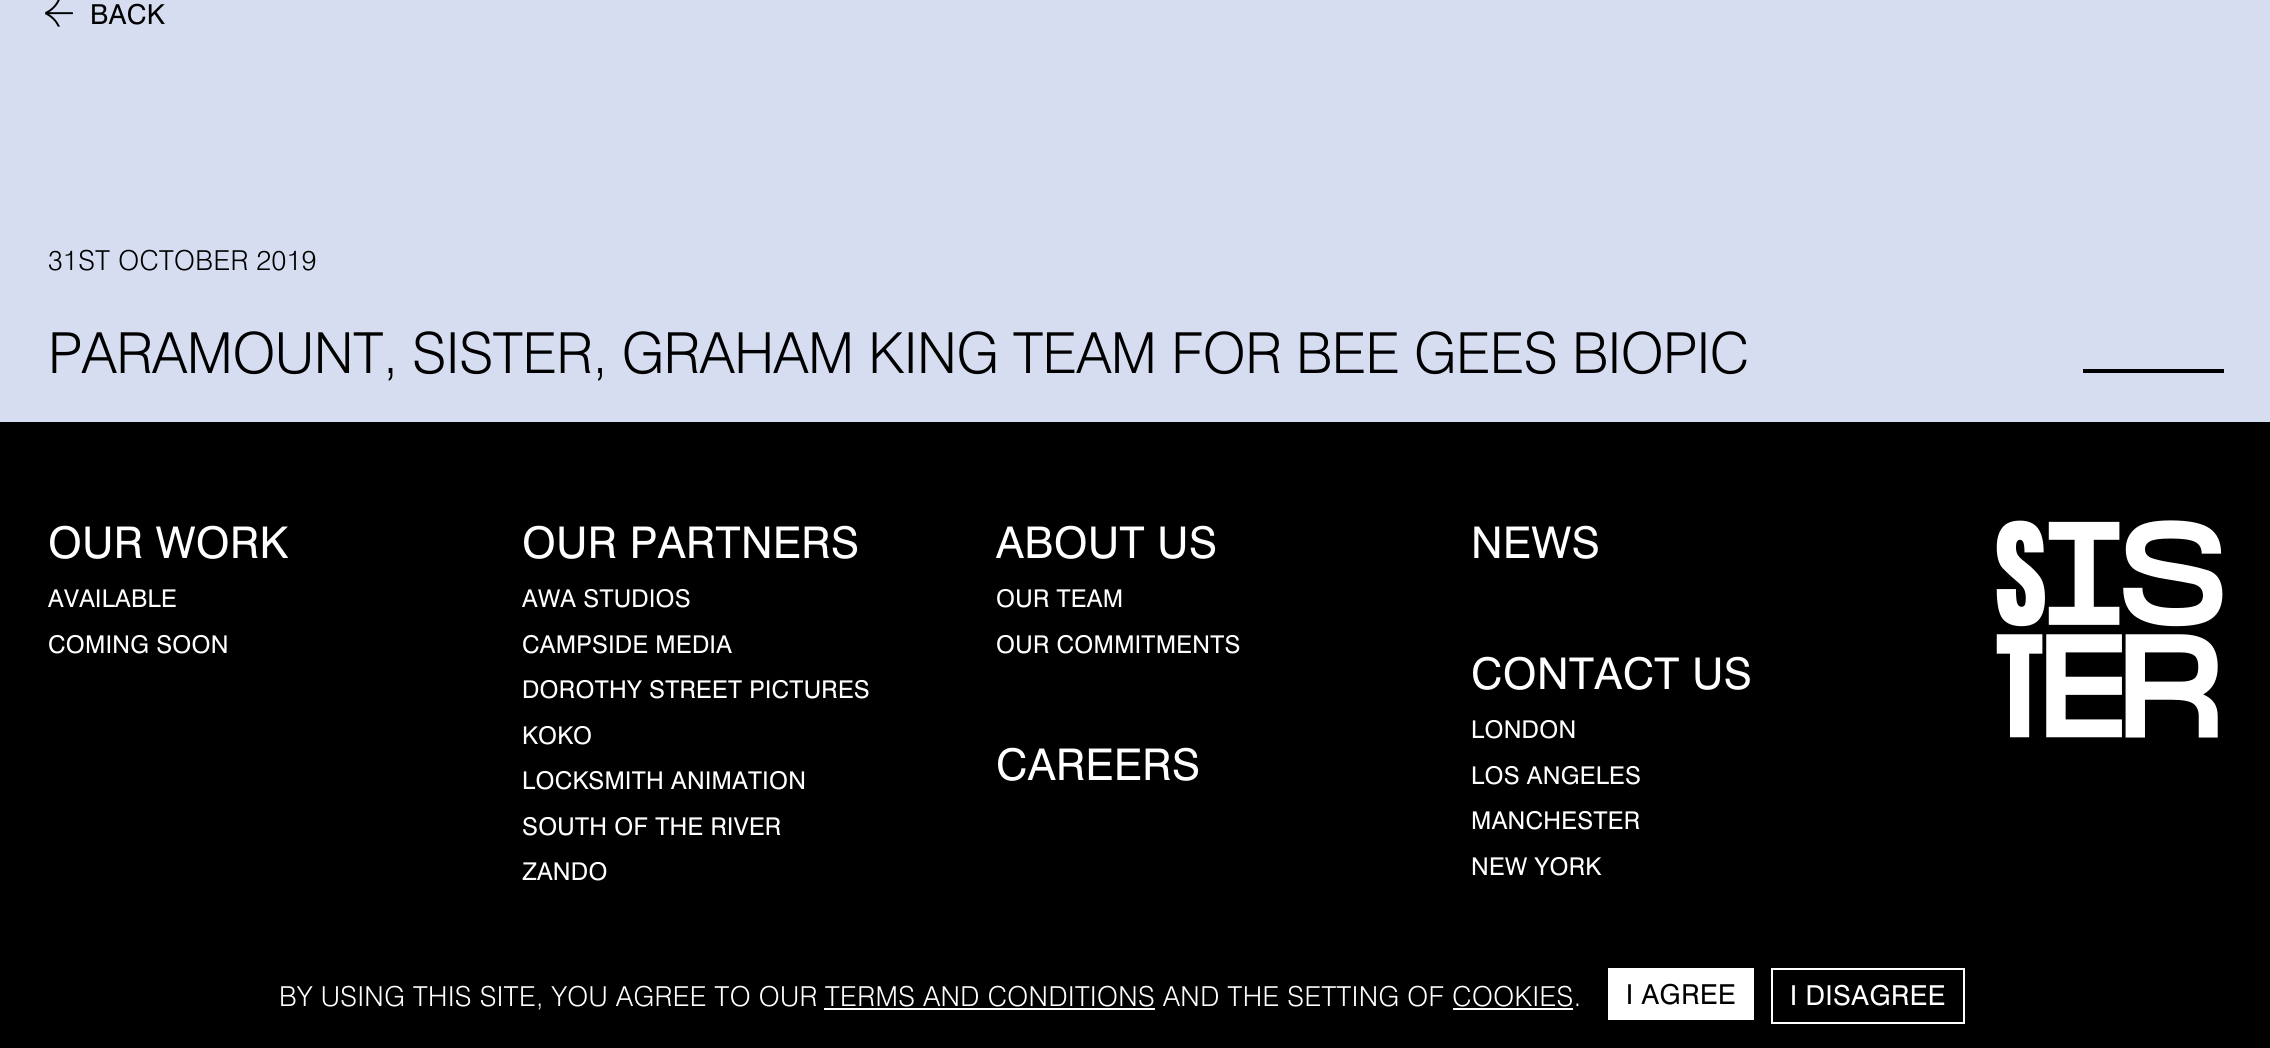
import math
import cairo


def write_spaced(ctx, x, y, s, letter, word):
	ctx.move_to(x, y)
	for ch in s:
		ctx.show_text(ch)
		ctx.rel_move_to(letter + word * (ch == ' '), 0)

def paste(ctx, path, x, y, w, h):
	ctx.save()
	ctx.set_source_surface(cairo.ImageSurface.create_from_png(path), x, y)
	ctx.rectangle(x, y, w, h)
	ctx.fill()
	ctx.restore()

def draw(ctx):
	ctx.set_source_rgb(0, 0, 0)
	ctx.paint()
	ctx.set_source_rgb(0.839, 0.867, 0.945)
	ctx.rectangle(0, 0, 2270, 422)
	ctx.fill()
	paste(ctx, 'media/1.png', 45, 0, 28, 27)
	ctx.select_font_face('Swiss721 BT')
	ctx.set_font_size(27.5)
	ctx.set_source_rgb(0, 0, 0)
	write_spaced(ctx, 90, 24, 'BACK', 0.5, 0)
	ctx.select_font_face('Swiss721 BT Light')
	write_spaced(ctx, 48, 270, '31ST OCTOBER 2019', 0.45, 0)
	ctx.set_font_size(56.6)
	write_spaced(ctx, 48, 373, 'PARAMOUNT, SISTER, GRAHAM KING TEAM FOR BEE GEES BIOPIC', -0.45, 0)
	ctx.rectangle(2083, 369, 141, 4)
	ctx.fill()
	ctx.select_font_face('Swiss721 BT')
	ctx.set_font_size(43.75)
	ctx.set_source_rgb(1, 1, 1)
	write_spaced(ctx, 48, 558, 'OUR WORK', 0.45, 0)
	ctx.set_font_size(24.5)
	write_spaced(ctx, 48, 607, 'AVAILABLE', 0.3, 0)
	write_spaced(ctx, 48, 653, 'COMING SOON', 0.3, 0)
	ctx.set_font_size(43.75)
	write_spaced(ctx, 522, 558, 'OUR PARTNERS', 0.45, 0)
	ctx.set_font_size(24.5)
	for x, y, s in [
		(522, 607, 'AWA STUDIOS'),
		(522, 653, 'CAMPSIDE MEDIA'),
		(522, 698, 'DOROTHY STREET PICTURES'),
		(522, 744, 'KOKO'),
		(522, 789, 'LOCKSMITH ANIMATION'),
		(522, 835, 'SOUTH OF THE RIVER'),
		(522, 880, 'ZANDO'),
	]:
		write_spaced(ctx, x, y, s, 0.3, 0)
	ctx.set_font_size(43.75)
	write_spaced(ctx, 996, 558, 'ABOUT US', 0.45, 0)
	ctx.set_font_size(24.5)
	write_spaced(ctx, 996, 607, 'OUR TEAM', 0.3, 0)
	write_spaced(ctx, 996, 653, 'OUR COMMITMENTS', 0.3, 0)
	ctx.set_font_size(43.75)
	for x, y, s in [
		(996, 780, 'CAREERS'),
		(1471, 558, 'NEWS'),
		(1471, 689, 'CONTACT US'),
	]:
		write_spaced(ctx, x, y, s, 0.45, 0)
	ctx.set_font_size(24.5)
	for x, y, s in [
		(1471, 738, 'LONDON'),
		(1471, 784, 'LOS ANGELES'),
		(1471, 829, 'MANCHESTER'),
		(1471, 875, 'NEW YORK'),
	]:
		write_spaced(ctx, x, y, s, 0.3, 0)
	paste(ctx, 'media/2.png', 1996, 520, 227, 218)
	ctx.select_font_face('Swiss721 BT Light')
	ctx.set_font_size(27.5)
	write_spaced(ctx, 279, 1006, 'BY USING THIS SITE, YOU AGREE TO OUR', 0.45, 0)
	write_spaced(ctx, 825, 1006, 'TERMS AND CONDITIONS AND THE SETTING OF COOKIES.', 0.45, 0)
	ctx.rectangle(824, 1008, 331, 2)
	ctx.rectangle(1453, 1008, 120, 2)
	ctx.rectangle(1608, 968, 146, 52)
	ctx.fill()
	ctx.select_font_face('Swiss721 BT')
	ctx.set_source_rgb(0, 0, 0)
	write_spaced(ctx, 1626, 1004, 'I AGREE', 0.5, 0)
	ctx.rectangle(1772, 969, 192, 54)
	ctx.set_source_rgb(1, 1, 1)
	ctx.stroke()
	write_spaced(ctx, 1790, 1005, 'I DISAGREE', 0.5, 0)


surface = cairo.ImageSurface(cairo.FORMAT_RGB24, 2270, 1048)
ctx = cairo.Context(surface)
options = cairo.FontOptions()
options.set_hint_metrics(cairo.HINT_METRICS_OFF)
options.set_hint_style(cairo.HINT_STYLE_NONE)
ctx.set_font_options(options)
ctx.set_miter_limit(4)
draw(ctx)
surface.write_to_png('image.png')
